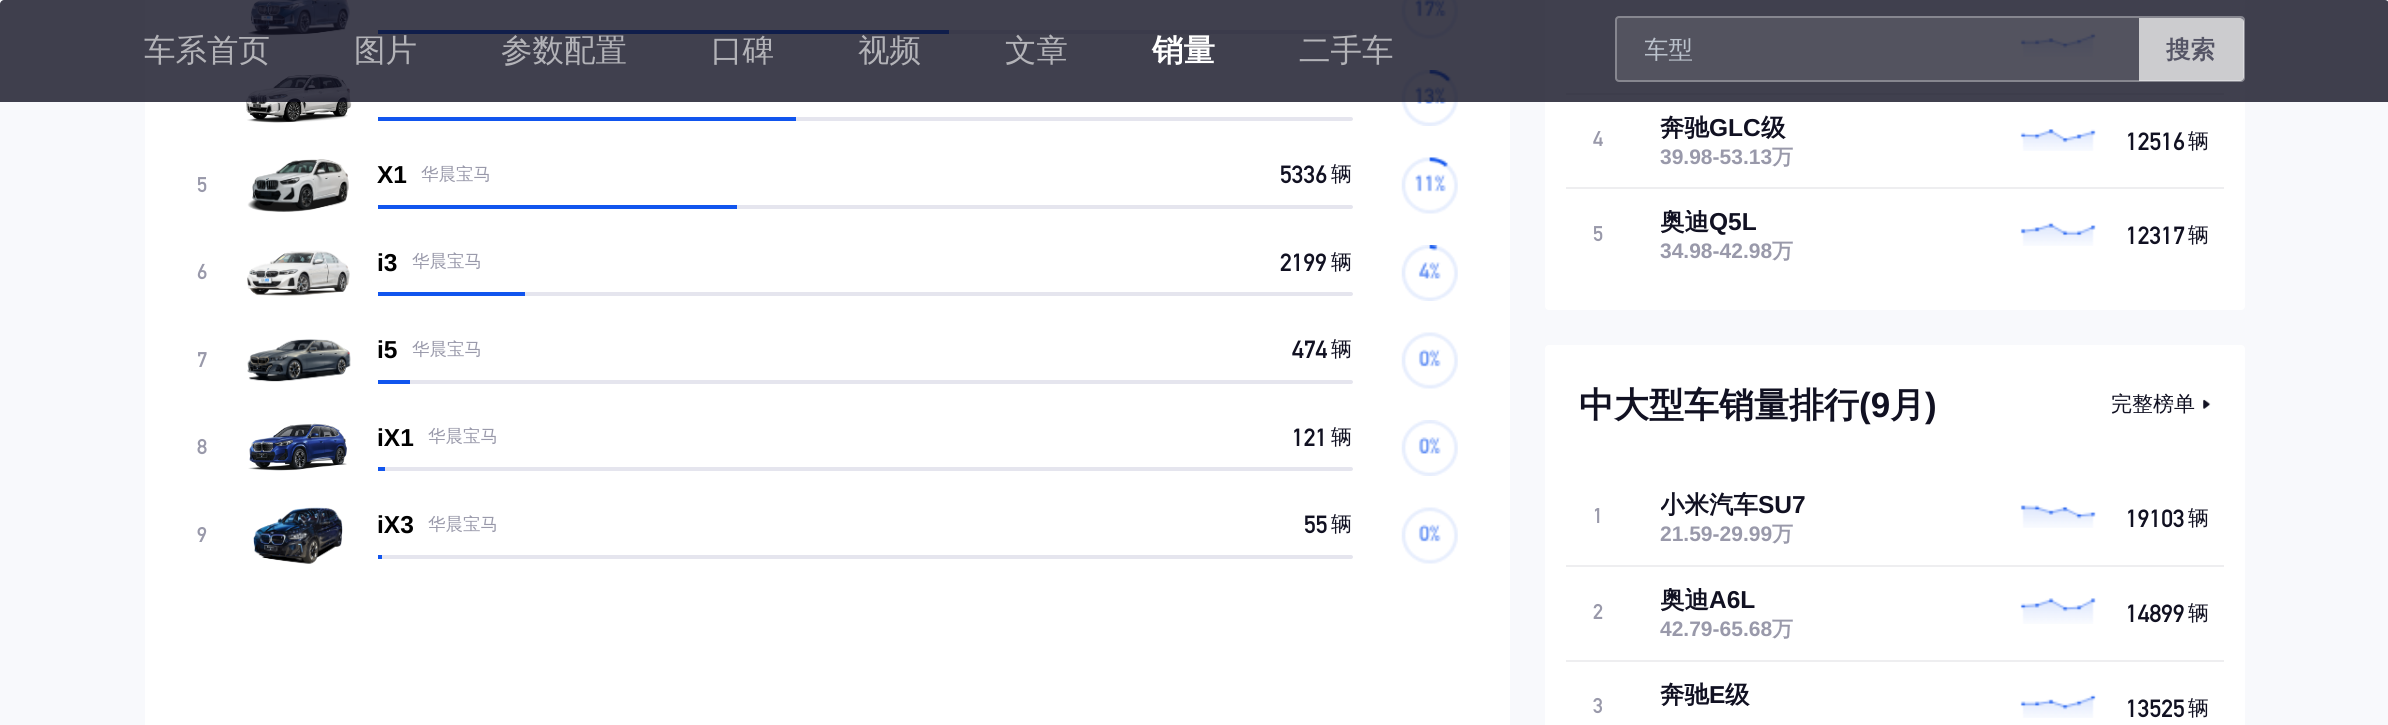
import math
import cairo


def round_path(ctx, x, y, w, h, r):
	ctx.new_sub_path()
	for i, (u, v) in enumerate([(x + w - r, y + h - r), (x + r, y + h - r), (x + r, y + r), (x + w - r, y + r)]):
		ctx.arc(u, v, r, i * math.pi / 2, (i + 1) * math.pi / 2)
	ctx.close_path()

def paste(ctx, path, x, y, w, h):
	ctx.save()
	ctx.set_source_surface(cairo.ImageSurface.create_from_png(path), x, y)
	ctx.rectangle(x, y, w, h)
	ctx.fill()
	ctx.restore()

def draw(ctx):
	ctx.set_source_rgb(0.969, 0.973, 0.988)
	ctx.paint()
	ctx.set_source_rgb(1, 1, 1)
	ctx.rectangle(145, 0, 1365, 725)
	ctx.fill()
	paste(ctx, 'media/1.png', 248, 0, 102, 36)
	ctx.set_source_rgb(0.898, 0.898, 0.933)
	round_path(ctx, 378, 30, 975, 4, 2)
	ctx.fill()
	ctx.set_source_rgb(0.067, 0.333, 0.933)
	ctx.rectangle(378, 30, 571, 4)
	ctx.fill()
	paste(ctx, 'media/2.png', 1401, 0, 57, 39)
	paste(ctx, 'media/3.png', 246, 74, 106, 49)
	paste(ctx, 'media/4.png', 1401, 70, 57, 56)
	ctx.set_source_rgb(1, 1, 1)
	round_path(ctx, 1545, -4, 700, 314, 4)
	ctx.fill()
	paste(ctx, 'media/14.png', 2020, 33, 76, 24)
	ctx.set_source_rgb(0.933, 0.933, 0.941)
	ctx.rectangle(1566, 93, 658, 2)
	ctx.fill()
	ctx.set_source_rgba(0.067, 0.067, 0.133, 0.8)
	ctx.new_path()
	ctx.move_to(4, 0)
	ctx.line_to(2385, 0)
	ctx.curve_to(2387, 0, 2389, 2, 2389, 4)
	ctx.line_to(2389, 102)
	ctx.line_to(0, 102)
	ctx.line_to(0, 4)
	ctx.curve_to(0, 2, 2, 0, 4, 0)
	ctx.close_path()
	ctx.fill()
	ctx.select_font_face('WenQuanYi Zen Hei Medium')
	ctx.set_font_size(31.5)
	ctx.set_source_rgb(0.702, 0.702, 0.722)
	for x, y, s in [
		(144, 61, '车系首页'),
		(354, 61, '图片'),
		(501, 61, '参数配置'),
		(711, 61, '口碑'),
		(858, 61, '视频'),
		(1005, 61, '文章'),
	]:
		ctx.move_to(x, y)
		ctx.show_text(s)
	ctx.select_font_face('WenQuanYi Zen Hei', cairo.FONT_SLANT_NORMAL, cairo.FONT_WEIGHT_BOLD)
	ctx.set_source_rgb(1, 1, 1)
	ctx.move_to(1152, 61)
	ctx.show_text('销量')
	ctx.select_font_face('WenQuanYi Zen Hei Medium')
	ctx.set_source_rgb(0.702, 0.702, 0.722)
	ctx.move_to(1299, 61)
	ctx.show_text('二手车')
	ctx.set_source_rgba(1, 1, 1, 0.1)
	round_path(ctx, 1615, 16, 630, 66, 4)
	ctx.fill()
	round_path(ctx, 1616, 17, 628, 64, 3)
	ctx.set_source_rgba(1, 1, 1, 0.3)
	ctx.stroke()
	ctx.save()
	ctx.rectangle(1645, 35, 466, 32)
	ctx.clip()
	ctx.set_font_size(24.5)
	ctx.set_source_rgb(0.733, 0.761, 0.8)
	ctx.move_to(1644, 58)
	ctx.show_text('车型')
	ctx.restore()
	ctx.set_source_rgba(1, 1, 1, 0.7)
	ctx.new_path()
	ctx.move_to(2139, 18)
	ctx.line_to(2240, 18)
	ctx.curve_to(2242, 18, 2244, 20, 2244, 22)
	ctx.line_to(2244, 77)
	ctx.curve_to(2244, 79, 2242, 81, 2240, 81)
	ctx.line_to(2139, 81)
	ctx.close_path()
	ctx.fill()
	ctx.select_font_face('WenQuanYi Zen Hei', cairo.FONT_SLANT_NORMAL, cairo.FONT_WEIGHT_BOLD)
	ctx.set_font_size(24.5)
	ctx.set_source_rgb(0.333, 0.333, 0.4)
	ctx.move_to(2166, 58)
	ctx.show_text('搜索')
	ctx.set_source_rgb(0.898, 0.898, 0.933)
	round_path(ctx, 378, 117, 975, 4, 2)
	ctx.fill()
	ctx.set_source_rgb(0.067, 0.333, 0.933)
	ctx.rectangle(378, 117, 418, 4)
	ctx.fill()
	ctx.select_font_face('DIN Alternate', cairo.FONT_SLANT_NORMAL, cairo.FONT_WEIGHT_BOLD)
	ctx.set_font_size(21)
	ctx.set_source_rgb(0.6, 0.6, 0.667)
	ctx.move_to(197, 192)
	ctx.show_text('5')
	paste(ctx, 'media/5.png', 247, 159, 102, 53)
	ctx.select_font_face('Liberation Sans', cairo.FONT_SLANT_NORMAL, cairo.FONT_WEIGHT_BOLD)
	ctx.set_font_size(24.5)
	ctx.set_source_rgb(0, 0, 0)
	ctx.move_to(377, 183)
	ctx.show_text('X1')
	ctx.select_font_face('WenQuanYi Zen Hei Medium')
	ctx.set_font_size(17.5)
	ctx.set_source_rgb(0.6, 0.6, 0.667)
	ctx.move_to(421, 180)
	ctx.show_text('华晨宝马')
	ctx.select_font_face('DIN Alternate', cairo.FONT_SLANT_NORMAL, cairo.FONT_WEIGHT_BOLD)
	ctx.set_font_size(24.5)
	ctx.set_source_rgb(0.067, 0.067, 0.133)
	ctx.move_to(1280, 183)
	ctx.show_text('5336')
	ctx.select_font_face('WenQuanYi Zen Hei Medium')
	ctx.set_font_size(21)
	ctx.move_to(1331, 181)
	ctx.show_text('辆')
	ctx.set_source_rgb(0.898, 0.898, 0.933)
	round_path(ctx, 378, 205, 975, 4, 2)
	ctx.fill()
	ctx.set_source_rgb(0.067, 0.333, 0.933)
	ctx.rectangle(378, 205, 359, 4)
	ctx.fill()
	paste(ctx, 'media/6.png', 1401, 157, 57, 57)
	ctx.select_font_face('DIN Alternate', cairo.FONT_SLANT_NORMAL, cairo.FONT_WEIGHT_BOLD)
	ctx.set_source_rgb(0.6, 0.6, 0.667)
	ctx.move_to(197, 279)
	ctx.show_text('6')
	paste(ctx, 'media/7.png', 247, 250, 103, 46)
	ctx.select_font_face('Liberation Sans', cairo.FONT_SLANT_NORMAL, cairo.FONT_WEIGHT_BOLD)
	ctx.set_font_size(24.5)
	ctx.set_source_rgb(0, 0, 0)
	ctx.move_to(377, 271)
	ctx.show_text('i3')
	ctx.select_font_face('WenQuanYi Zen Hei Medium')
	ctx.set_font_size(17.5)
	ctx.set_source_rgb(0.6, 0.6, 0.667)
	ctx.move_to(412, 267)
	ctx.show_text('华晨宝马')
	ctx.select_font_face('DIN Alternate', cairo.FONT_SLANT_NORMAL, cairo.FONT_WEIGHT_BOLD)
	ctx.set_font_size(24.5)
	ctx.set_source_rgb(0.067, 0.067, 0.133)
	ctx.move_to(1280, 271)
	ctx.show_text('2199')
	ctx.select_font_face('WenQuanYi Zen Hei Medium')
	ctx.set_font_size(21)
	ctx.move_to(1331, 269)
	ctx.show_text('辆')
	ctx.set_source_rgb(0.898, 0.898, 0.933)
	round_path(ctx, 378, 292, 975, 4, 2)
	ctx.fill()
	ctx.set_source_rgb(0.067, 0.333, 0.933)
	ctx.rectangle(378, 292, 147, 4)
	ctx.fill()
	paste(ctx, 'media/8.png', 1401, 245, 57, 56)
	ctx.select_font_face('DIN Alternate', cairo.FONT_SLANT_NORMAL, cairo.FONT_WEIGHT_BOLD)
	ctx.set_source_rgb(0.6, 0.6, 0.667)
	ctx.move_to(197, 367)
	ctx.show_text('7')
	paste(ctx, 'media/9.png', 247, 339, 104, 43)
	ctx.select_font_face('Liberation Sans', cairo.FONT_SLANT_NORMAL, cairo.FONT_WEIGHT_BOLD)
	ctx.set_font_size(24.5)
	ctx.set_source_rgb(0, 0, 0)
	ctx.move_to(377, 358)
	ctx.show_text('i5')
	ctx.select_font_face('WenQuanYi Zen Hei Medium')
	ctx.set_font_size(17.5)
	ctx.set_source_rgb(0.6, 0.6, 0.667)
	ctx.move_to(412, 355)
	ctx.show_text('华晨宝马')
	ctx.select_font_face('DIN Alternate', cairo.FONT_SLANT_NORMAL, cairo.FONT_WEIGHT_BOLD)
	ctx.set_font_size(24.5)
	ctx.set_source_rgb(0.067, 0.067, 0.133)
	ctx.move_to(1292, 358)
	ctx.show_text('474')
	ctx.select_font_face('WenQuanYi Zen Hei Medium')
	ctx.set_font_size(21)
	ctx.move_to(1331, 356)
	ctx.show_text('辆')
	ctx.set_source_rgb(0.898, 0.898, 0.933)
	round_path(ctx, 378, 380, 975, 4, 2)
	ctx.fill()
	ctx.set_source_rgb(0.067, 0.333, 0.933)
	ctx.rectangle(378, 380, 32, 4)
	ctx.fill()
	paste(ctx, 'media/10.png', 1401, 332, 57, 57)
	ctx.select_font_face('DIN Alternate', cairo.FONT_SLANT_NORMAL, cairo.FONT_WEIGHT_BOLD)
	ctx.set_source_rgb(0.6, 0.6, 0.667)
	ctx.move_to(197, 454)
	ctx.show_text('8')
	paste(ctx, 'media/11.png', 248, 423, 99, 48)
	ctx.select_font_face('Liberation Sans', cairo.FONT_SLANT_NORMAL, cairo.FONT_WEIGHT_BOLD)
	ctx.set_font_size(24.5)
	ctx.set_source_rgb(0, 0, 0)
	ctx.move_to(377, 446)
	ctx.show_text('iX1')
	ctx.select_font_face('WenQuanYi Zen Hei Medium')
	ctx.set_font_size(17.5)
	ctx.set_source_rgb(0.6, 0.6, 0.667)
	ctx.move_to(428, 442)
	ctx.show_text('华晨宝马')
	ctx.select_font_face('DIN Alternate', cairo.FONT_SLANT_NORMAL, cairo.FONT_WEIGHT_BOLD)
	ctx.set_font_size(24.5)
	ctx.set_source_rgb(0.067, 0.067, 0.133)
	ctx.move_to(1292, 446)
	ctx.show_text('121')
	ctx.select_font_face('WenQuanYi Zen Hei Medium')
	ctx.set_font_size(21)
	ctx.move_to(1331, 444)
	ctx.show_text('辆')
	ctx.set_source_rgb(0.898, 0.898, 0.933)
	round_path(ctx, 378, 467, 975, 4, 2)
	ctx.fill()
	ctx.set_source_rgb(0.067, 0.333, 0.933)
	ctx.rectangle(378, 467, 7, 4)
	ctx.fill()
	paste(ctx, 'media/12.png', 1401, 420, 57, 56)
	ctx.select_font_face('DIN Alternate', cairo.FONT_SLANT_NORMAL, cairo.FONT_WEIGHT_BOLD)
	ctx.set_source_rgb(0.6, 0.6, 0.667)
	ctx.move_to(197, 542)
	ctx.show_text('9')
	paste(ctx, 'media/13.png', 253, 507, 90, 57)
	ctx.select_font_face('Liberation Sans', cairo.FONT_SLANT_NORMAL, cairo.FONT_WEIGHT_BOLD)
	ctx.set_font_size(24.5)
	ctx.set_source_rgb(0, 0, 0)
	ctx.move_to(377, 533)
	ctx.show_text('iX3')
	ctx.select_font_face('WenQuanYi Zen Hei Medium')
	ctx.set_font_size(17.5)
	ctx.set_source_rgb(0.6, 0.6, 0.667)
	ctx.move_to(428, 530)
	ctx.show_text('华晨宝马')
	ctx.select_font_face('DIN Alternate', cairo.FONT_SLANT_NORMAL, cairo.FONT_WEIGHT_BOLD)
	ctx.set_font_size(24.5)
	ctx.set_source_rgb(0.067, 0.067, 0.133)
	ctx.move_to(1304, 533)
	ctx.show_text('55')
	ctx.select_font_face('WenQuanYi Zen Hei Medium')
	ctx.set_font_size(21)
	ctx.move_to(1331, 531)
	ctx.show_text('辆')
	ctx.set_source_rgb(0.898, 0.898, 0.933)
	round_path(ctx, 378, 555, 975, 4, 2)
	ctx.fill()
	ctx.set_source_rgb(0.067, 0.333, 0.933)
	ctx.rectangle(378, 555, 4, 4)
	ctx.fill()
	paste(ctx, 'media/10.png', 1401, 507, 57, 57)
	ctx.select_font_face('DIN Alternate', cairo.FONT_SLANT_NORMAL, cairo.FONT_WEIGHT_BOLD)
	ctx.set_source_rgb(0.6, 0.6, 0.667)
	ctx.move_to(1593, 146)
	ctx.show_text('4')
	ctx.select_font_face('WenQuanYi Zen Hei', cairo.FONT_SLANT_NORMAL, cairo.FONT_WEIGHT_BOLD)
	ctx.set_font_size(24.5)
	ctx.set_source_rgb(0.067, 0.067, 0.133)
	ctx.move_to(1660, 136)
	ctx.show_text('奔驰')
	ctx.select_font_face('Liberation Sans', cairo.FONT_SLANT_NORMAL, cairo.FONT_WEIGHT_BOLD)
	ctx.move_to(1709, 136)
	ctx.show_text('GLC')
	ctx.select_font_face('WenQuanYi Zen Hei', cairo.FONT_SLANT_NORMAL, cairo.FONT_WEIGHT_BOLD)
	ctx.move_to(1761, 136)
	ctx.show_text('级')
	ctx.select_font_face('Liberation Sans', cairo.FONT_SLANT_NORMAL, cairo.FONT_WEIGHT_BOLD)
	ctx.set_font_size(21)
	ctx.set_source_rgb(0.6, 0.6, 0.667)
	ctx.move_to(1660, 164)
	ctx.show_text('39.98-53.13')
	ctx.select_font_face('WenQuanYi Zen Hei', cairo.FONT_SLANT_NORMAL, cairo.FONT_WEIGHT_BOLD)
	ctx.move_to(1772, 164)
	ctx.show_text('万')
	paste(ctx, 'media/15.png', 2020, 129, 76, 22)
	ctx.select_font_face('DIN Alternate', cairo.FONT_SLANT_NORMAL, cairo.FONT_WEIGHT_BOLD)
	ctx.set_font_size(24.5)
	ctx.set_source_rgb(0.067, 0.067, 0.133)
	ctx.move_to(2126, 150)
	ctx.show_text('12516')
	ctx.select_font_face('WenQuanYi Zen Hei Medium')
	ctx.set_font_size(21)
	ctx.move_to(2188, 148)
	ctx.show_text('辆')
	ctx.set_source_rgb(0.933, 0.933, 0.941)
	ctx.rectangle(1566, 187, 658, 2)
	ctx.fill()
	ctx.select_font_face('DIN Alternate', cairo.FONT_SLANT_NORMAL, cairo.FONT_WEIGHT_BOLD)
	ctx.set_source_rgb(0.6, 0.6, 0.667)
	ctx.move_to(1593, 241)
	ctx.show_text('5')
	ctx.save()
	ctx.rectangle(1661, 210, 341, 25)
	ctx.clip()
	ctx.select_font_face('WenQuanYi Zen Hei', cairo.FONT_SLANT_NORMAL, cairo.FONT_WEIGHT_BOLD)
	ctx.set_font_size(24.5)
	ctx.set_source_rgb(0.067, 0.067, 0.133)
	ctx.move_to(1660, 230)
	ctx.show_text('奥迪')
	ctx.restore()
	ctx.select_font_face('Liberation Sans', cairo.FONT_SLANT_NORMAL, cairo.FONT_WEIGHT_BOLD)
	ctx.set_font_size(24.5)
	ctx.set_source_rgb(0.067, 0.067, 0.133)
	ctx.move_to(1709, 230)
	ctx.show_text('Q5L')
	ctx.set_font_size(21)
	ctx.set_source_rgb(0.6, 0.6, 0.667)
	ctx.move_to(1660, 258)
	ctx.show_text('34.98-42.98')
	ctx.select_font_face('WenQuanYi Zen Hei', cairo.FONT_SLANT_NORMAL, cairo.FONT_WEIGHT_BOLD)
	ctx.move_to(1772, 258)
	ctx.show_text('万')
	paste(ctx, 'media/16.png', 2020, 222, 76, 24)
	ctx.select_font_face('DIN Alternate', cairo.FONT_SLANT_NORMAL, cairo.FONT_WEIGHT_BOLD)
	ctx.set_font_size(24.5)
	ctx.set_source_rgb(0.067, 0.067, 0.133)
	ctx.move_to(2126, 244)
	ctx.show_text('12317')
	ctx.select_font_face('WenQuanYi Zen Hei Medium')
	ctx.set_font_size(21)
	ctx.move_to(2188, 242)
	ctx.show_text('辆')
	ctx.set_source_rgb(1, 1, 1)
	round_path(ctx, 1545, 345, 700, 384, 4)
	ctx.fill()
	ctx.select_font_face('WenQuanYi Zen Hei', cairo.FONT_SLANT_NORMAL, cairo.FONT_WEIGHT_BOLD)
	ctx.set_font_size(35)
	ctx.set_source_rgb(0.067, 0.067, 0.133)
	ctx.move_to(1579, 417)
	ctx.show_text('中大型车销量排行')
	ctx.select_font_face('Liberation Sans', cairo.FONT_SLANT_NORMAL, cairo.FONT_WEIGHT_BOLD)
	ctx.move_to(1859, 417)
	ctx.show_text('(9')
	ctx.select_font_face('WenQuanYi Zen Hei', cairo.FONT_SLANT_NORMAL, cairo.FONT_WEIGHT_BOLD)
	ctx.move_to(1890, 417)
	ctx.show_text('月')
	ctx.select_font_face('Liberation Sans', cairo.FONT_SLANT_NORMAL, cairo.FONT_WEIGHT_BOLD)
	ctx.move_to(1925, 417)
	ctx.show_text(')')
	ctx.select_font_face('WenQuanYi Zen Hei Medium')
	ctx.set_font_size(21)
	ctx.move_to(2111, 411)
	ctx.show_text('完整榜单')
	paste(ctx, 'media/17.png', 2203, 399, 8, 10)
	ctx.select_font_face('DIN Alternate', cairo.FONT_SLANT_NORMAL, cairo.FONT_WEIGHT_BOLD)
	ctx.set_source_rgb(0.6, 0.6, 0.667)
	ctx.move_to(1593, 523)
	ctx.show_text('1')
	ctx.save()
	ctx.rectangle(1661, 492, 341, 24)
	ctx.clip()
	ctx.select_font_face('WenQuanYi Zen Hei', cairo.FONT_SLANT_NORMAL, cairo.FONT_WEIGHT_BOLD)
	ctx.set_font_size(24.5)
	ctx.set_source_rgb(0.067, 0.067, 0.133)
	ctx.move_to(1660, 513)
	ctx.show_text('小米汽车')
	ctx.restore()
	ctx.select_font_face('Liberation Sans', cairo.FONT_SLANT_NORMAL, cairo.FONT_WEIGHT_BOLD)
	ctx.set_font_size(24.5)
	ctx.set_source_rgb(0.067, 0.067, 0.133)
	ctx.move_to(1758, 513)
	ctx.show_text('SU7')
	ctx.set_font_size(21)
	ctx.set_source_rgb(0.6, 0.6, 0.667)
	ctx.move_to(1660, 541)
	ctx.show_text('21.59-29.99')
	ctx.select_font_face('WenQuanYi Zen Hei', cairo.FONT_SLANT_NORMAL, cairo.FONT_WEIGHT_BOLD)
	ctx.move_to(1772, 541)
	ctx.show_text('万')
	paste(ctx, 'media/18.png', 2020, 505, 76, 23)
	ctx.select_font_face('DIN Alternate', cairo.FONT_SLANT_NORMAL, cairo.FONT_WEIGHT_BOLD)
	ctx.set_font_size(24.5)
	ctx.set_source_rgb(0.067, 0.067, 0.133)
	ctx.move_to(2126, 527)
	ctx.show_text('19103')
	ctx.select_font_face('WenQuanYi Zen Hei Medium')
	ctx.set_font_size(21)
	ctx.move_to(2188, 525)
	ctx.show_text('辆')
	ctx.set_source_rgb(0.933, 0.933, 0.941)
	ctx.rectangle(1566, 565, 658, 2)
	ctx.fill()
	ctx.select_font_face('DIN Alternate', cairo.FONT_SLANT_NORMAL, cairo.FONT_WEIGHT_BOLD)
	ctx.set_source_rgb(0.6, 0.6, 0.667)
	ctx.move_to(1593, 619)
	ctx.show_text('2')
	ctx.save()
	ctx.rectangle(1661, 588, 341, 25)
	ctx.clip()
	ctx.select_font_face('WenQuanYi Zen Hei', cairo.FONT_SLANT_NORMAL, cairo.FONT_WEIGHT_BOLD)
	ctx.set_font_size(24.5)
	ctx.set_source_rgb(0.067, 0.067, 0.133)
	ctx.move_to(1660, 608)
	ctx.show_text('奥迪')
	ctx.restore()
	ctx.select_font_face('Liberation Sans', cairo.FONT_SLANT_NORMAL, cairo.FONT_WEIGHT_BOLD)
	ctx.set_font_size(24.5)
	ctx.set_source_rgb(0.067, 0.067, 0.133)
	ctx.move_to(1709, 608)
	ctx.show_text('A6L')
	ctx.set_font_size(21)
	ctx.set_source_rgb(0.6, 0.6, 0.667)
	ctx.move_to(1660, 636)
	ctx.show_text('42.79-65.68')
	ctx.select_font_face('WenQuanYi Zen Hei', cairo.FONT_SLANT_NORMAL, cairo.FONT_WEIGHT_BOLD)
	ctx.move_to(1772, 636)
	ctx.show_text('万')
	paste(ctx, 'media/19.png', 2020, 598, 76, 26)
	ctx.select_font_face('DIN Alternate', cairo.FONT_SLANT_NORMAL, cairo.FONT_WEIGHT_BOLD)
	ctx.set_font_size(24.5)
	ctx.set_source_rgb(0.067, 0.067, 0.133)
	ctx.move_to(2126, 622)
	ctx.show_text('14899')
	ctx.select_font_face('WenQuanYi Zen Hei Medium')
	ctx.set_font_size(21)
	ctx.move_to(2188, 620)
	ctx.show_text('辆')
	ctx.set_source_rgb(0.933, 0.933, 0.941)
	ctx.rectangle(1566, 660, 658, 2)
	ctx.fill()
	ctx.select_font_face('DIN Alternate', cairo.FONT_SLANT_NORMAL, cairo.FONT_WEIGHT_BOLD)
	ctx.set_source_rgb(0.6, 0.6, 0.667)
	ctx.move_to(1593, 713)
	ctx.show_text('3')
	ctx.select_font_face('WenQuanYi Zen Hei', cairo.FONT_SLANT_NORMAL, cairo.FONT_WEIGHT_BOLD)
	ctx.set_font_size(24.5)
	ctx.set_source_rgb(0.067, 0.067, 0.133)
	ctx.move_to(1660, 703)
	ctx.show_text('奔驰')
	ctx.select_font_face('Liberation Sans', cairo.FONT_SLANT_NORMAL, cairo.FONT_WEIGHT_BOLD)
	ctx.move_to(1709, 703)
	ctx.show_text('E')
	ctx.select_font_face('WenQuanYi Zen Hei', cairo.FONT_SLANT_NORMAL, cairo.FONT_WEIGHT_BOLD)
	ctx.move_to(1725, 703)
	ctx.show_text('级')
	paste(ctx, 'media/20.png', 2020, 694, 76, 24)
	ctx.select_font_face('DIN Alternate', cairo.FONT_SLANT_NORMAL, cairo.FONT_WEIGHT_BOLD)
	ctx.move_to(2126, 717)
	ctx.show_text('13525')
	ctx.select_font_face('WenQuanYi Zen Hei Medium')
	ctx.set_font_size(21)
	ctx.move_to(2188, 715)
	ctx.show_text('辆')


surface = cairo.ImageSurface(cairo.FORMAT_RGB24, 2388, 725)
ctx = cairo.Context(surface)
options = cairo.FontOptions()
options.set_hint_metrics(cairo.HINT_METRICS_OFF)
options.set_hint_style(cairo.HINT_STYLE_NONE)
ctx.set_font_options(options)
ctx.set_miter_limit(4)
draw(ctx)
surface.write_to_png('image.png')
